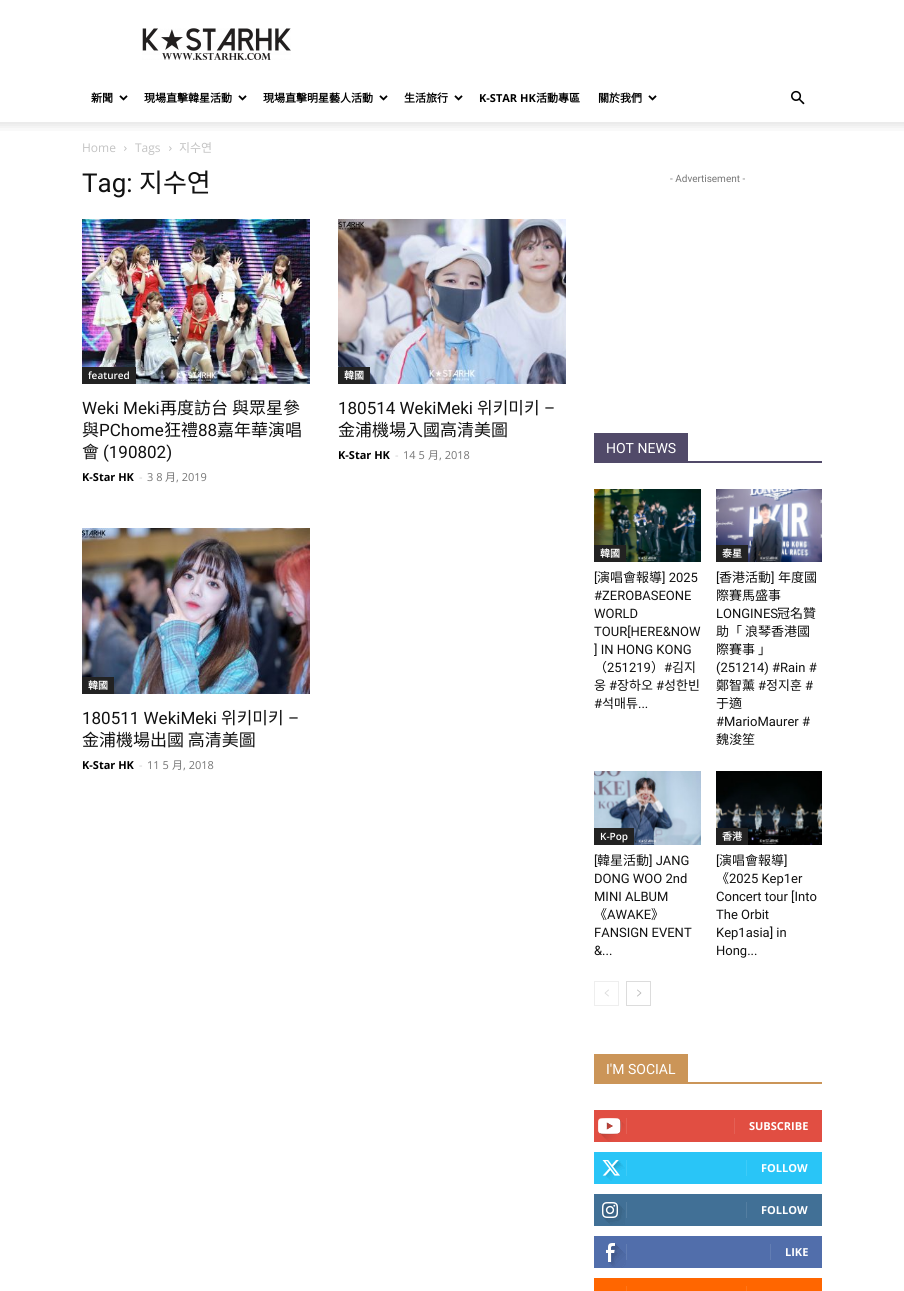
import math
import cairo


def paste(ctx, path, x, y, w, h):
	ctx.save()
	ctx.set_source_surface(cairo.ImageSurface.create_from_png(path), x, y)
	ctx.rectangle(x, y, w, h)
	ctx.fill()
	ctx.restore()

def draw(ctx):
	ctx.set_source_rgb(1, 1, 1)
	ctx.paint()
	paste(ctx, 'media/1.png', 142, 28, 149, 32)
	ctx.select_font_face('Noto Sans CJK HK', cairo.FONT_SLANT_NORMAL, cairo.FONT_WEIGHT_BOLD)
	ctx.set_font_size(11)
	ctx.set_source_rgb(0, 0, 0)
	ctx.move_to(91, 102)
	ctx.show_text('新聞')
	paste(ctx, 'media/2.png', 119, 95, 9, 6)
	ctx.move_to(144, 102)
	ctx.show_text('現場直擊韓星活動')
	paste(ctx, 'media/2.png', 238, 95, 9, 6)
	ctx.move_to(263, 102)
	ctx.show_text('現場直擊明星藝人活動')
	paste(ctx, 'media/2.png', 379, 95, 9, 6)
	ctx.move_to(404, 102)
	ctx.show_text('生活旅行')
	paste(ctx, 'media/2.png', 454, 95, 9, 6)
	ctx.select_font_face('Open Sans', cairo.FONT_SLANT_NORMAL, cairo.FONT_WEIGHT_BOLD)
	ctx.move_to(479, 102)
	ctx.show_text('K-STAR HK')
	ctx.select_font_face('Noto Sans CJK HK', cairo.FONT_SLANT_NORMAL, cairo.FONT_WEIGHT_BOLD)
	ctx.move_to(536, 102)
	ctx.show_text('活動專區')
	ctx.move_to(598, 102)
	ctx.show_text('關於我們')
	paste(ctx, 'media/2.png', 648, 95, 9, 6)
	paste(ctx, 'media/3.png', 791, 90, 14, 15)
	paste(ctx, 'media/4.png', 0, 122, 904, 9)
	ctx.select_font_face('Open Sans')
	ctx.set_font_size(12)
	ctx.set_source_rgb(0.765, 0.765, 0.765)
	ctx.move_to(82, 152)
	ctx.show_text('Home')
	paste(ctx, 'media/5.png', 124, 146, 3, 5)
	ctx.move_to(135, 152)
	ctx.show_text('Tags')
	paste(ctx, 'media/5.png', 169, 146, 3, 5)
	ctx.select_font_face('Noto Sans CJK HK')
	ctx.move_to(179, 152)
	ctx.show_text('지수연')
	ctx.select_font_face('Roboto')
	ctx.set_font_size(26)
	ctx.set_source_rgb(0.067, 0.067, 0.067)
	ctx.move_to(82, 192)
	ctx.show_text('Tag:')
	ctx.select_font_face('Noto Sans CJK HK')
	ctx.move_to(139, 192)
	ctx.show_text('지수연')
	paste(ctx, 'media/6.png', 82, 219, 228, 165)
	ctx.set_source_rgb(0.133, 0.133, 0.133)
	ctx.rectangle(82, 367, 54, 17)
	ctx.fill()
	ctx.select_font_face('Open Sans SemiBold')
	ctx.set_font_size(10)
	ctx.set_source_rgb(1, 1, 1)
	ctx.move_to(88, 379)
	ctx.show_text('featured')
	ctx.select_font_face('Roboto')
	ctx.set_font_size(17)
	ctx.set_source_rgb(0.067, 0.067, 0.067)
	ctx.move_to(82, 414)
	ctx.show_text('Weki Meki')
	ctx.select_font_face('Noto Sans CJK HK')
	for x, y, s in [
		(160, 414, '再度訪台'),
		(232, 414, '與眾星參'),
		(82, 436, '與'),
	]:
		ctx.move_to(x, y)
		ctx.show_text(s)
	ctx.select_font_face('Roboto')
	ctx.move_to(99, 436)
	ctx.show_text('PChome')
	ctx.select_font_face('Noto Sans CJK HK')
	ctx.move_to(164, 436)
	ctx.show_text('狂禮')
	ctx.select_font_face('Roboto')
	ctx.move_to(198, 436)
	ctx.show_text('88')
	ctx.select_font_face('Noto Sans CJK HK')
	ctx.move_to(217, 436)
	ctx.show_text('嘉年華演唱')
	ctx.move_to(82, 458)
	ctx.show_text('會')
	ctx.select_font_face('Roboto')
	ctx.move_to(103, 458)
	ctx.show_text('(190802)')
	ctx.select_font_face('Open Sans', cairo.FONT_SLANT_NORMAL, cairo.FONT_WEIGHT_BOLD)
	ctx.set_font_size(11)
	ctx.set_source_rgb(0, 0, 0)
	ctx.move_to(82, 481)
	ctx.show_text('K-Star HK')
	ctx.select_font_face('Open Sans')
	ctx.set_source_rgb(0.8, 0.8, 0.8)
	ctx.move_to(139, 481)
	ctx.show_text('-')
	ctx.set_source_rgb(0.463, 0.463, 0.463)
	ctx.move_to(147, 481)
	ctx.show_text('3 8')
	ctx.select_font_face('Noto Sans CJK HK')
	ctx.move_to(165, 481)
	ctx.show_text('月')
	ctx.select_font_face('Open Sans')
	ctx.move_to(176, 481)
	ctx.show_text(', 2019')
	paste(ctx, 'media/7.png', 338, 219, 228, 165)
	ctx.set_source_rgb(0.133, 0.133, 0.133)
	ctx.rectangle(338, 367, 32, 17)
	ctx.fill()
	ctx.select_font_face('Noto Sans CJK HK', cairo.FONT_SLANT_NORMAL, cairo.FONT_WEIGHT_BOLD)
	ctx.set_font_size(10)
	ctx.set_source_rgb(1, 1, 1)
	ctx.move_to(344, 379)
	ctx.show_text('韓國')
	ctx.select_font_face('Roboto')
	ctx.set_font_size(17)
	ctx.set_source_rgb(0.067, 0.067, 0.067)
	ctx.move_to(338, 414)
	ctx.show_text('180514 WekiMeki')
	ctx.select_font_face('Noto Sans CJK HK')
	ctx.move_to(477, 414)
	ctx.show_text('위키미키')
	ctx.select_font_face('Roboto')
	ctx.move_to(544, 414)
	ctx.show_text('–')
	ctx.select_font_face('Noto Sans CJK HK')
	ctx.move_to(338, 436)
	ctx.show_text('金浦機場入國高清美圖')
	ctx.select_font_face('Open Sans', cairo.FONT_SLANT_NORMAL, cairo.FONT_WEIGHT_BOLD)
	ctx.set_font_size(11)
	ctx.set_source_rgb(0, 0, 0)
	ctx.move_to(338, 459)
	ctx.show_text('K-Star HK')
	ctx.select_font_face('Open Sans')
	ctx.set_source_rgb(0.8, 0.8, 0.8)
	ctx.move_to(395, 459)
	ctx.show_text('-')
	ctx.set_source_rgb(0.463, 0.463, 0.463)
	ctx.move_to(403, 459)
	ctx.show_text('14 5')
	ctx.select_font_face('Noto Sans CJK HK')
	ctx.move_to(428, 459)
	ctx.show_text('月')
	ctx.select_font_face('Open Sans')
	ctx.move_to(439, 459)
	ctx.show_text(', 2018')
	paste(ctx, 'media/8.png', 82, 528, 228, 166)
	ctx.set_source_rgb(0.133, 0.133, 0.133)
	ctx.rectangle(82, 677, 32, 17)
	ctx.fill()
	ctx.select_font_face('Noto Sans CJK HK', cairo.FONT_SLANT_NORMAL, cairo.FONT_WEIGHT_BOLD)
	ctx.set_font_size(10)
	ctx.set_source_rgb(1, 1, 1)
	ctx.move_to(88, 689)
	ctx.show_text('韓國')
	ctx.select_font_face('Roboto')
	ctx.set_font_size(17)
	ctx.set_source_rgb(0.067, 0.067, 0.067)
	ctx.move_to(82, 724)
	ctx.show_text('180511 WekiMeki')
	ctx.select_font_face('Noto Sans CJK HK')
	ctx.move_to(221, 724)
	ctx.show_text('위키미키')
	ctx.select_font_face('Roboto')
	ctx.move_to(288, 724)
	ctx.show_text('–')
	ctx.select_font_face('Noto Sans CJK HK')
	ctx.move_to(82, 746)
	ctx.show_text('金浦機場出國 高清美圖')
	ctx.select_font_face('Open Sans', cairo.FONT_SLANT_NORMAL, cairo.FONT_WEIGHT_BOLD)
	ctx.set_font_size(11)
	ctx.set_source_rgb(0, 0, 0)
	ctx.move_to(82, 769)
	ctx.show_text('K-Star HK')
	ctx.select_font_face('Open Sans')
	ctx.set_source_rgb(0.8, 0.8, 0.8)
	ctx.move_to(139, 769)
	ctx.show_text('-')
	ctx.set_source_rgb(0.463, 0.463, 0.463)
	ctx.move_to(147, 769)
	ctx.show_text('11 5')
	ctx.select_font_face('Noto Sans CJK HK')
	ctx.move_to(172, 769)
	ctx.show_text('月')
	ctx.select_font_face('Open Sans')
	ctx.move_to(183, 769)
	ctx.show_text(', 2018')
	ctx.select_font_face('Roboto')
	ctx.set_font_size(10)
	ctx.move_to(670, 182)
	ctx.show_text('- Advertisement -')
	ctx.set_source_rgb(0.318, 0.29, 0.412)
	ctx.rectangle(594, 461, 228, 2)
	ctx.fill()
	ctx.rectangle(594, 433, 94, 28)
	ctx.fill()
	ctx.set_font_size(14)
	ctx.set_source_rgb(1, 1, 1)
	ctx.move_to(606, 453)
	ctx.show_text('HOT NEWS')
	paste(ctx, 'media/9.png', 594, 489, 107, 73)
	ctx.set_source_rgb(0.133, 0.133, 0.133)
	ctx.rectangle(594, 545, 32, 17)
	ctx.fill()
	ctx.select_font_face('Noto Sans CJK HK', cairo.FONT_SLANT_NORMAL, cairo.FONT_WEIGHT_BOLD)
	ctx.set_font_size(10)
	ctx.set_source_rgb(1, 1, 1)
	ctx.move_to(600, 557)
	ctx.show_text('韓國')
	ctx.select_font_face('Roboto')
	ctx.set_font_size(13)
	ctx.set_source_rgb(0.067, 0.067, 0.067)
	ctx.move_to(594, 582)
	ctx.show_text('[')
	ctx.select_font_face('Noto Sans CJK HK')
	ctx.move_to(597, 582)
	ctx.show_text('演唱會報導')
	ctx.select_font_face('Roboto')
	for x, y, s in [
		(662, 582, '] 2025'),
		(594, 600, '#ZEROBASEONE'),
		(594, 618, 'WORLD'),
		(594, 636, 'TOUR[HERE&NOW'),
		(594, 654, '] IN HONG KONG'),
	]:
		ctx.move_to(x, y)
		ctx.show_text(s)
	ctx.select_font_face('Noto Sans CJK HK')
	ctx.move_to(594, 672)
	ctx.show_text('（')
	ctx.select_font_face('Roboto')
	ctx.move_to(607, 672)
	ctx.show_text('251219')
	ctx.select_font_face('Noto Sans CJK HK')
	ctx.move_to(651, 672)
	ctx.show_text('）')
	ctx.select_font_face('Roboto')
	ctx.move_to(664, 672)
	ctx.show_text('#')
	ctx.select_font_face('Noto Sans CJK HK')
	ctx.move_to(672, 672)
	ctx.show_text('김지')
	ctx.move_to(594, 690)
	ctx.show_text('웅')
	ctx.select_font_face('Roboto')
	ctx.move_to(609, 690)
	ctx.show_text('#')
	ctx.select_font_face('Noto Sans CJK HK')
	ctx.move_to(617, 690)
	ctx.show_text('장하오')
	ctx.select_font_face('Roboto')
	ctx.move_to(656, 690)
	ctx.show_text('#')
	ctx.select_font_face('Noto Sans CJK HK')
	ctx.move_to(664, 690)
	ctx.show_text('성한빈')
	ctx.select_font_face('Roboto')
	ctx.move_to(594, 708)
	ctx.show_text('#')
	ctx.select_font_face('Noto Sans CJK HK')
	ctx.move_to(602, 708)
	ctx.show_text('석매튜')
	ctx.select_font_face('Roboto')
	ctx.move_to(638, 708)
	ctx.show_text('...')
	paste(ctx, 'media/10.png', 716, 489, 106, 73)
	ctx.set_source_rgb(0.133, 0.133, 0.133)
	ctx.rectangle(716, 545, 32, 17)
	ctx.fill()
	ctx.select_font_face('Noto Sans CJK HK', cairo.FONT_SLANT_NORMAL, cairo.FONT_WEIGHT_BOLD)
	ctx.set_font_size(10)
	ctx.set_source_rgb(1, 1, 1)
	ctx.move_to(722, 557)
	ctx.show_text('泰星')
	ctx.select_font_face('Roboto')
	ctx.set_font_size(13)
	ctx.set_source_rgb(0.067, 0.067, 0.067)
	ctx.move_to(716, 582)
	ctx.show_text('[')
	ctx.select_font_face('Noto Sans CJK HK')
	ctx.move_to(719, 582)
	ctx.show_text('香港活動')
	ctx.select_font_face('Roboto')
	ctx.move_to(771, 582)
	ctx.show_text(']')
	ctx.select_font_face('Noto Sans CJK HK')
	ctx.move_to(778, 582)
	ctx.show_text('年度國')
	ctx.move_to(716, 600)
	ctx.show_text('際賽馬盛事')
	ctx.select_font_face('Roboto')
	ctx.move_to(716, 618)
	ctx.show_text('LONGINES')
	ctx.select_font_face('Noto Sans CJK HK')
	for x, y, s in [
		(777, 618, '冠名贊'),
		(716, 636, '助「 浪琴香港國'),
		(716, 654, '際賽事 」'),
	]:
		ctx.move_to(x, y)
		ctx.show_text(s)
	ctx.select_font_face('Roboto')
	ctx.move_to(716, 672)
	ctx.show_text('(251214) #Rain #')
	ctx.select_font_face('Noto Sans CJK HK')
	ctx.move_to(716, 690)
	ctx.show_text('鄭智薰')
	ctx.select_font_face('Roboto')
	ctx.move_to(758, 690)
	ctx.show_text('#')
	ctx.select_font_face('Noto Sans CJK HK')
	ctx.move_to(766, 690)
	ctx.show_text('정지훈')
	ctx.select_font_face('Roboto')
	ctx.move_to(805, 690)
	ctx.show_text('#')
	ctx.select_font_face('Noto Sans CJK HK')
	ctx.move_to(716, 708)
	ctx.show_text('于適')
	ctx.select_font_face('Roboto')
	ctx.move_to(716, 726)
	ctx.show_text('#MarioMaurer #')
	ctx.select_font_face('Noto Sans CJK HK')
	ctx.move_to(716, 744)
	ctx.show_text('魏浚笙')
	paste(ctx, 'media/11.png', 594, 771, 107, 74)
	ctx.set_source_rgb(0.133, 0.133, 0.133)
	ctx.rectangle(594, 828, 40, 17)
	ctx.fill()
	ctx.select_font_face('Open Sans SemiBold')
	ctx.set_font_size(10)
	ctx.set_source_rgb(1, 1, 1)
	ctx.move_to(600, 840)
	ctx.show_text('K-Pop')
	ctx.select_font_face('Roboto')
	ctx.set_font_size(13)
	ctx.set_source_rgb(0.067, 0.067, 0.067)
	ctx.move_to(594, 865)
	ctx.show_text('[')
	ctx.select_font_face('Noto Sans CJK HK')
	ctx.move_to(597, 865)
	ctx.show_text('韓星活動')
	ctx.select_font_face('Roboto')
	for x, y, s in [
		(649, 865, '] JANG'),
		(594, 883, 'DONG WOO 2nd'),
		(594, 901, 'MINI ALBUM'),
	]:
		ctx.move_to(x, y)
		ctx.show_text(s)
	ctx.select_font_face('Noto Sans CJK HK')
	ctx.move_to(594, 919)
	ctx.show_text('《')
	ctx.select_font_face('Roboto')
	ctx.move_to(607, 919)
	ctx.show_text('AWAKE')
	ctx.select_font_face('Noto Sans CJK HK')
	ctx.move_to(651, 919)
	ctx.show_text('》')
	ctx.select_font_face('Roboto')
	ctx.move_to(594, 937)
	ctx.show_text('FANSIGN EVENT')
	ctx.move_to(594, 955)
	ctx.show_text('&...')
	paste(ctx, 'media/12.png', 716, 771, 106, 74)
	ctx.set_source_rgb(0.133, 0.133, 0.133)
	ctx.rectangle(716, 828, 32, 17)
	ctx.fill()
	ctx.select_font_face('Noto Sans CJK HK', cairo.FONT_SLANT_NORMAL, cairo.FONT_WEIGHT_BOLD)
	ctx.set_font_size(10)
	ctx.set_source_rgb(1, 1, 1)
	ctx.move_to(722, 840)
	ctx.show_text('香港')
	ctx.select_font_face('Roboto')
	ctx.set_font_size(13)
	ctx.set_source_rgb(0.067, 0.067, 0.067)
	ctx.move_to(716, 865)
	ctx.show_text('[')
	ctx.select_font_face('Noto Sans CJK HK')
	ctx.move_to(719, 865)
	ctx.show_text('演唱會報導')
	ctx.select_font_face('Roboto')
	ctx.move_to(784, 865)
	ctx.show_text(']')
	ctx.select_font_face('Noto Sans CJK HK')
	ctx.move_to(716, 883)
	ctx.show_text('《')
	ctx.select_font_face('Roboto')
	for x, y, s in [
		(729, 883, '2025 Kep1er'),
		(716, 901, 'Concert tour [Into'),
		(716, 919, 'The Orbit'),
		(716, 937, 'Kep1asia] in'),
		(716, 955, 'Hong...'),
	]:
		ctx.move_to(x, y)
		ctx.show_text(s)
	ctx.rectangle(594.5, 981.5, 24, 24)
	ctx.set_source_rgb(0.933, 0.933, 0.933)
	ctx.set_line_width(1)
	ctx.stroke()
	paste(ctx, 'media/13.png', 604, 989, 5, 8)
	ctx.rectangle(626.5, 981.5, 24, 24)
	ctx.set_source_rgb(0.863, 0.863, 0.863)
	ctx.stroke()
	paste(ctx, 'media/14.png', 637, 989, 5, 8)
	ctx.set_source_rgb(0.796, 0.584, 0.345)
	ctx.rectangle(594, 1082, 228, 2)
	ctx.fill()
	ctx.rectangle(594, 1054, 94, 28)
	ctx.fill()
	ctx.set_font_size(14)
	ctx.set_source_rgb(1, 1, 1)
	ctx.move_to(606, 1074)
	ctx.show_text('I\'M SOCIAL')
	ctx.set_source_rgb(0.882, 0.306, 0.259)
	ctx.rectangle(594, 1110, 228, 32)
	ctx.fill()
	paste(ctx, 'media/15.png', 598, 1118, 27, 24)
	ctx.set_source_rgb(0.894, 0.376, 0.333)
	ctx.rectangle(626, 1118, 1, 16)
	ctx.fill()
	ctx.rectangle(734, 1118, 1, 16)
	ctx.fill()
	ctx.select_font_face('Open Sans', cairo.FONT_SLANT_NORMAL, cairo.FONT_WEIGHT_BOLD)
	ctx.set_font_size(11)
	ctx.set_source_rgb(1, 1, 1)
	ctx.move_to(749, 1130)
	ctx.show_text('SUBSCRIBE')
	ctx.set_source_rgb(0.161, 0.773, 0.965)
	ctx.rectangle(594, 1152, 228, 32)
	ctx.fill()
	paste(ctx, 'media/16.png', 602, 1160, 23, 21)
	ctx.set_source_rgb(0.243, 0.796, 0.969)
	ctx.rectangle(626, 1160, 1, 16)
	ctx.fill()
	ctx.rectangle(746, 1160, 1, 16)
	ctx.fill()
	ctx.set_source_rgb(1, 1, 1)
	ctx.move_to(761, 1172)
	ctx.show_text('FOLLOW')
	ctx.set_source_rgb(0.255, 0.439, 0.588)
	ctx.rectangle(594, 1194, 228, 32)
	ctx.fill()
	paste(ctx, 'media/17.png', 602, 1202, 23, 23)
	ctx.set_source_rgb(0.329, 0.494, 0.631)
	ctx.rectangle(626, 1202, 1, 16)
	ctx.fill()
	ctx.rectangle(746, 1202, 1, 16)
	ctx.fill()
	ctx.set_source_rgb(1, 1, 1)
	ctx.move_to(761, 1214)
	ctx.show_text('FOLLOW')
	ctx.set_source_rgb(0.318, 0.431, 0.671)
	ctx.rectangle(594, 1236, 228, 32)
	ctx.fill()
	paste(ctx, 'media/18.png', 606, 1243, 20, 25)
	ctx.set_source_rgb(0.384, 0.49, 0.702)
	ctx.rectangle(626, 1244, 1, 16)
	ctx.fill()
	ctx.rectangle(770, 1244, 1, 16)
	ctx.fill()
	ctx.set_source_rgb(1, 1, 1)
	ctx.move_to(785, 1256)
	ctx.show_text('LIKE')
	ctx.set_source_rgb(1, 0.4, 0)
	ctx.rectangle(594, 1278, 228, 13)
	ctx.fill()
	ctx.set_source_rgb(1, 0.459, 0.102)
	ctx.rectangle(626, 1286, 1, 5)
	ctx.rectangle(746, 1286, 1, 5)
	ctx.fill()


surface = cairo.ImageSurface(cairo.FORMAT_RGB24, 904, 1291)
ctx = cairo.Context(surface)
options = cairo.FontOptions()
options.set_hint_metrics(cairo.HINT_METRICS_OFF)
options.set_hint_style(cairo.HINT_STYLE_NONE)
ctx.set_font_options(options)
ctx.set_miter_limit(4)
draw(ctx)
surface.write_to_png('image.png')
